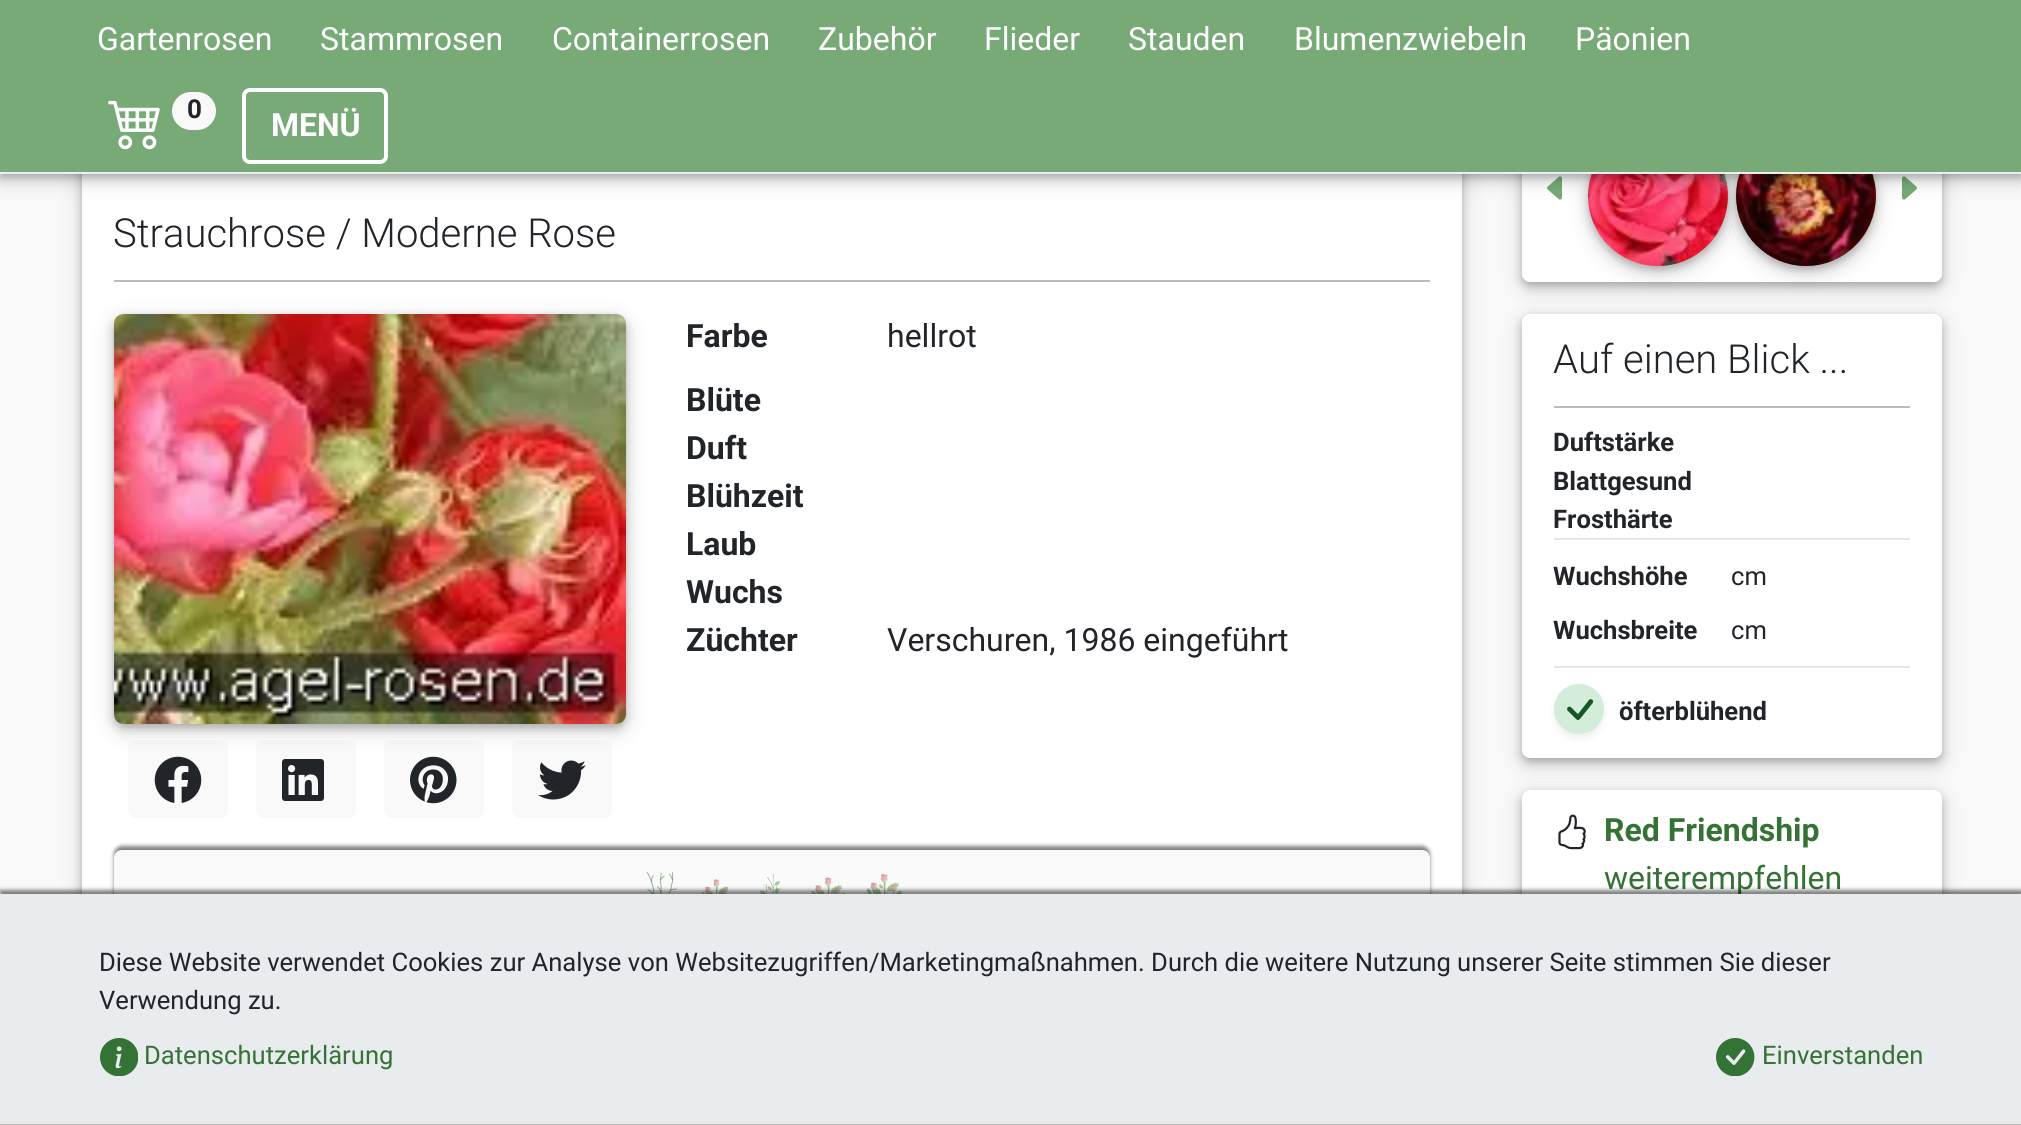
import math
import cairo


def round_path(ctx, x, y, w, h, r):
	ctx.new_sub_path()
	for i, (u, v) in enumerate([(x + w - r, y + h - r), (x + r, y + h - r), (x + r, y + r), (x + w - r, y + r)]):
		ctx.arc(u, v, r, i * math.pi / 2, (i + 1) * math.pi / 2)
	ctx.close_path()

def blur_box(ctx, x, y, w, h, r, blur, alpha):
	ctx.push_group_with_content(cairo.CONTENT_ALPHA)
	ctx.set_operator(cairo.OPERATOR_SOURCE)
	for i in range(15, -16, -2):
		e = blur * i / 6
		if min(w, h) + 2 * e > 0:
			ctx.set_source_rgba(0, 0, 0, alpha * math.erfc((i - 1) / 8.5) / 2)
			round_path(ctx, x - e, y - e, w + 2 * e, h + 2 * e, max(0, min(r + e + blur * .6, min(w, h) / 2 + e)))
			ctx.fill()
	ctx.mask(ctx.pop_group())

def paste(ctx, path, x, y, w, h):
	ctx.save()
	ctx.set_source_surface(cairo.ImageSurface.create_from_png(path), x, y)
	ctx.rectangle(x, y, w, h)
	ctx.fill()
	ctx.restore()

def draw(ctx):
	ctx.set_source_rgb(0.973, 0.973, 0.973)
	ctx.paint()
	ctx.set_source_rgb(0, 0, 0)
	blur_box(ctx, 82, 116, 1380, 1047, 8, 10, 0.19)
	blur_box(ctx, 82, 114, 1380, 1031, 8, 4, 0.2)
	ctx.set_source_rgb(1, 1, 1)
	ctx.rectangle(82, 174, 1380, 720)
	ctx.fill()
	ctx.set_source_rgb(0, 0, 0)
	blur_box(ctx, 1522, 116, 420, 172, 8, 10, 0.19)
	blur_box(ctx, 1522, 114, 420, 172, 8, 4, 0.2)
	ctx.set_source_rgb(1, 1, 1)
	round_path(ctx, 1522, 110, 420, 172, 8)
	ctx.fill()
	paste(ctx, 'media/12.png', 1547, 176, 15, 24)
	ctx.set_source_rgb(0, 0, 0)
	blur_box(ctx, 1588, 132, 140, 140, 70, 10, 0.19)
	blur_box(ctx, 1588, 130, 140, 140, 70, 4, 0.2)
	paste(ctx, 'media/13.png', 1588, 174, 140, 92)
	blur_box(ctx, 1736, 132, 140, 140, 70, 10, 0.19)
	blur_box(ctx, 1736, 130, 140, 140, 70, 4, 0.2)
	paste(ctx, 'media/14.png', 1736, 174, 140, 92)
	paste(ctx, 'media/15.png', 1902, 176, 15, 24)
	blur_box(ctx, 0, 6, 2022, 174, 0, 10, 0.19)
	blur_box(ctx, 0, 4, 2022, 174, 0, 4, 0.2)
	ctx.set_source_rgb(0.467, 0.667, 0.467)
	ctx.rectangle(0, 0, 2021, 172)
	ctx.fill()
	ctx.set_source_rgb(0.925, 0.933, 0.937)
	ctx.rectangle(0, 172, 2021, 2)
	ctx.fill()
	ctx.select_font_face('Roboto')
	ctx.set_font_size(32)
	ctx.set_source_rgb(1, 1, 1)
	for x, y, s in [
		(97, 50, 'Gartenrosen'),
		(320, 50, 'Stammrosen'),
		(552, 50, 'Containerrosen'),
		(818, 50, 'Zubehör'),
		(984, 50, 'Flieder'),
		(1128, 50, 'Stauden'),
		(1294, 50, 'Blumenzwiebeln'),
		(1575, 50, 'Päonien'),
	]:
		ctx.move_to(x, y)
		ctx.show_text(s)
	paste(ctx, 'media/1.png', 108, 100, 52, 50)
	ctx.set_source_rgb(0.973, 0.976, 0.98)
	round_path(ctx, 172, 92, 44, 38, 19)
	ctx.fill()
	ctx.select_font_face('Roboto', cairo.FONT_SLANT_NORMAL, cairo.FONT_WEIGHT_BOLD)
	ctx.set_font_size(26)
	ctx.set_source_rgb(0.129, 0.145, 0.161)
	ctx.move_to(187, 118)
	ctx.show_text('0')
	round_path(ctx, 244, 90, 142, 72, 6)
	ctx.set_source_rgb(1, 1, 1)
	ctx.set_line_width(4)
	ctx.stroke()
	ctx.set_font_size(32)
	ctx.move_to(271, 136)
	ctx.show_text('MENÜ')
	ctx.select_font_face('Roboto Light')
	ctx.set_font_size(40)
	ctx.set_source_rgb(0.129, 0.145, 0.161)
	ctx.move_to(113, 247)
	ctx.show_text('Strauchrose / Moderne Rose')
	ctx.set_source_rgb(0.733, 0.733, 0.733)
	ctx.rectangle(114, 280, 1316, 2)
	ctx.fill()
	ctx.set_source_rgb(0.973, 0.976, 0.98)
	round_path(ctx, 128, 740, 100, 78, 8)
	ctx.fill()
	paste(ctx, 'media/3.png', 154, 756, 48, 47)
	round_path(ctx, 256, 740, 100, 78, 8)
	ctx.fill()
	paste(ctx, 'media/4.png', 282, 759, 42, 42)
	round_path(ctx, 384, 740, 100, 78, 8)
	ctx.fill()
	paste(ctx, 'media/5.png', 410, 756, 47, 48)
	round_path(ctx, 512, 740, 100, 78, 8)
	ctx.fill()
	paste(ctx, 'media/6.png', 538, 760, 48, 40)
	ctx.set_source_rgb(0, 0, 0)
	blur_box(ctx, 114, 320, 512, 410, 10, 10, 0.19)
	blur_box(ctx, 114, 318, 512, 410, 10, 4, 0.2)
	paste(ctx, 'media/2.png', 114, 314, 512, 410)
	ctx.select_font_face('Roboto', cairo.FONT_SLANT_NORMAL, cairo.FONT_WEIGHT_BOLD)
	ctx.set_font_size(32)
	ctx.set_source_rgb(0.129, 0.145, 0.161)
	ctx.move_to(686, 347)
	ctx.show_text('Farbe')
	ctx.select_font_face('Roboto')
	ctx.move_to(887, 347)
	ctx.show_text('hellrot')
	ctx.select_font_face('Roboto', cairo.FONT_SLANT_NORMAL, cairo.FONT_WEIGHT_BOLD)
	for x, y, s in [
		(686, 411, 'Blüte'),
		(686, 459, 'Duft'),
		(686, 507, 'Blühzeit'),
		(686, 555, 'Laub'),
		(686, 603, 'Wuchs'),
		(686, 651, 'Züchter'),
	]:
		ctx.move_to(x, y)
		ctx.show_text(s)
	ctx.select_font_face('Roboto')
	ctx.move_to(887, 651)
	ctx.show_text('Verschuren, 1986 eingeführt')
	ctx.set_source_rgb(0, 0, 0)
	blur_box(ctx, 114, 846, 1316, 102, 8, 2, 0.5)
	gradient = cairo.LinearGradient(772, 850, 772, 952)
	gradient.add_color_stop_rgba(0, 0.973, 0.973, 0.973, 1)
	gradient.add_color_stop_rgba(1, 1, 1, 1, 1)
	ctx.set_source(gradient)
	ctx.new_path()
	ctx.move_to(122, 850)
	ctx.line_to(1422, 850)
	ctx.curve_to(1426.5, 850, 1430, 853.5, 1430, 858)
	ctx.line_to(1430, 952)
	ctx.line_to(114, 952)
	ctx.line_to(114, 858)
	ctx.curve_to(114, 853.5, 117.5, 850, 122, 850)
	ctx.close_path()
	ctx.fill()
	paste(ctx, 'media/7.png', 646, 871, 31, 23)
	paste(ctx, 'media/8.png', 701, 879, 28, 15)
	paste(ctx, 'media/9.png', 760, 873, 22, 21)
	paste(ctx, 'media/10.png', 811, 877, 34, 17)
	paste(ctx, 'media/11.png', 866, 874, 36, 20)
	ctx.set_source_rgb(0, 0, 0)
	blur_box(ctx, 1522, 320, 420, 444, 8, 10, 0.19)
	blur_box(ctx, 1522, 318, 420, 444, 8, 4, 0.2)
	ctx.set_source_rgb(1, 1, 1)
	round_path(ctx, 1522, 314, 420, 444, 8)
	ctx.fill()
	ctx.select_font_face('Roboto Light')
	ctx.set_font_size(40)
	ctx.set_source_rgb(0.129, 0.145, 0.161)
	ctx.move_to(1553, 373)
	ctx.show_text('Auf einen Blick ...')
	ctx.set_source_rgb(0.733, 0.733, 0.733)
	ctx.rectangle(1554, 406, 356, 2)
	ctx.fill()
	ctx.select_font_face('Roboto', cairo.FONT_SLANT_NORMAL, cairo.FONT_WEIGHT_BOLD)
	ctx.set_font_size(25.6)
	ctx.set_source_rgb(0.129, 0.145, 0.161)
	for x, y, s in [
		(1553, 451, 'Duftstärke'),
		(1553, 490, 'Blattgesund'),
		(1553, 528, 'Frosthärte'),
	]:
		ctx.move_to(x, y)
		ctx.show_text(s)
	ctx.set_source_rgb(0.902, 0.902, 0.902)
	ctx.rectangle(1554, 538, 356, 2)
	ctx.fill()
	ctx.set_source_rgb(0.129, 0.145, 0.161)
	ctx.move_to(1553, 585)
	ctx.show_text('Wuchshöhe')
	ctx.select_font_face('Roboto')
	ctx.move_to(1731, 585)
	ctx.show_text('cm')
	ctx.select_font_face('Roboto', cairo.FONT_SLANT_NORMAL, cairo.FONT_WEIGHT_BOLD)
	ctx.move_to(1553, 639)
	ctx.show_text('Wuchsbreite')
	ctx.select_font_face('Roboto')
	ctx.move_to(1731, 639)
	ctx.show_text('cm')
	ctx.set_source_rgb(0.902, 0.902, 0.902)
	ctx.rectangle(1554, 666, 356, 2)
	ctx.fill()
	ctx.set_source_rgb(0, 0, 0)
	blur_box(ctx, 1554, 688, 50, 50, 25, 4, 0.07)
	ctx.set_source_rgb(0.831, 0.929, 0.855)
	ctx.arc(1579, 709, 25, 0, 2 * math.pi)
	ctx.fill()
	paste(ctx, 'media/16.png', 1567, 699, 27, 21)
	ctx.select_font_face('Roboto', cairo.FONT_SLANT_NORMAL, cairo.FONT_WEIGHT_BOLD)
	ctx.set_source_rgb(0.129, 0.145, 0.161)
	ctx.move_to(1619, 720)
	ctx.show_text('öfterblühend')
	ctx.set_source_rgb(0, 0, 0)
	blur_box(ctx, 1522, 796, 420, 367, 8, 10, 0.19)
	blur_box(ctx, 1522, 794, 420, 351, 8, 4, 0.2)
	ctx.set_source_rgb(1, 1, 1)
	round_path(ctx, 1522, 790, 420, 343, 8)
	ctx.fill()
	paste(ctx, 'media/17.png', 1558, 814, 28, 36)
	ctx.set_font_size(32)
	ctx.set_source_rgb(0.208, 0.447, 0.208)
	ctx.move_to(1604, 841)
	ctx.show_text('Red Friendship')
	ctx.select_font_face('Roboto')
	ctx.move_to(1604, 889)
	ctx.show_text('weiterempfehlen')
	ctx.set_source_rgb(0, 0, 0)
	blur_box(ctx, 0, 890, 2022, 232, 0, 2, 0.5)
	ctx.set_source_rgb(0.914, 0.925, 0.937)
	ctx.rectangle(0, 894, 2021, 230)
	ctx.fill()
	ctx.set_source_rgb(0.733, 0.733, 0.733)
	ctx.rectangle(0, 1124, 2021, 1)
	ctx.fill()
	ctx.set_font_size(25.6)
	ctx.set_source_rgb(0.129, 0.145, 0.161)
	ctx.move_to(99, 971)
	ctx.show_text('Diese Website verwendet Cookies zur Analyse von Websitezugriffen/Marketingmaßnahmen. Durch die weitere Nutzung unserer Seite stimmen Sie dieser')
	ctx.move_to(99, 1009)
	ctx.show_text('Verwendung zu.')
	paste(ctx, 'media/18.png', 100, 1038, 38, 38)
	ctx.set_source_rgb(0.208, 0.447, 0.208)
	ctx.move_to(144, 1064)
	ctx.show_text('Datenschutzerklärung')
	paste(ctx, 'media/19.png', 1716, 1038, 39, 38)
	ctx.move_to(1762, 1064)
	ctx.show_text('Einverstanden')


surface = cairo.ImageSurface(cairo.FORMAT_RGB24, 2021, 1125)
ctx = cairo.Context(surface)
options = cairo.FontOptions()
options.set_hint_metrics(cairo.HINT_METRICS_OFF)
options.set_hint_style(cairo.HINT_STYLE_NONE)
ctx.set_font_options(options)
ctx.set_miter_limit(4)
draw(ctx)
surface.write_to_png('image.png')
